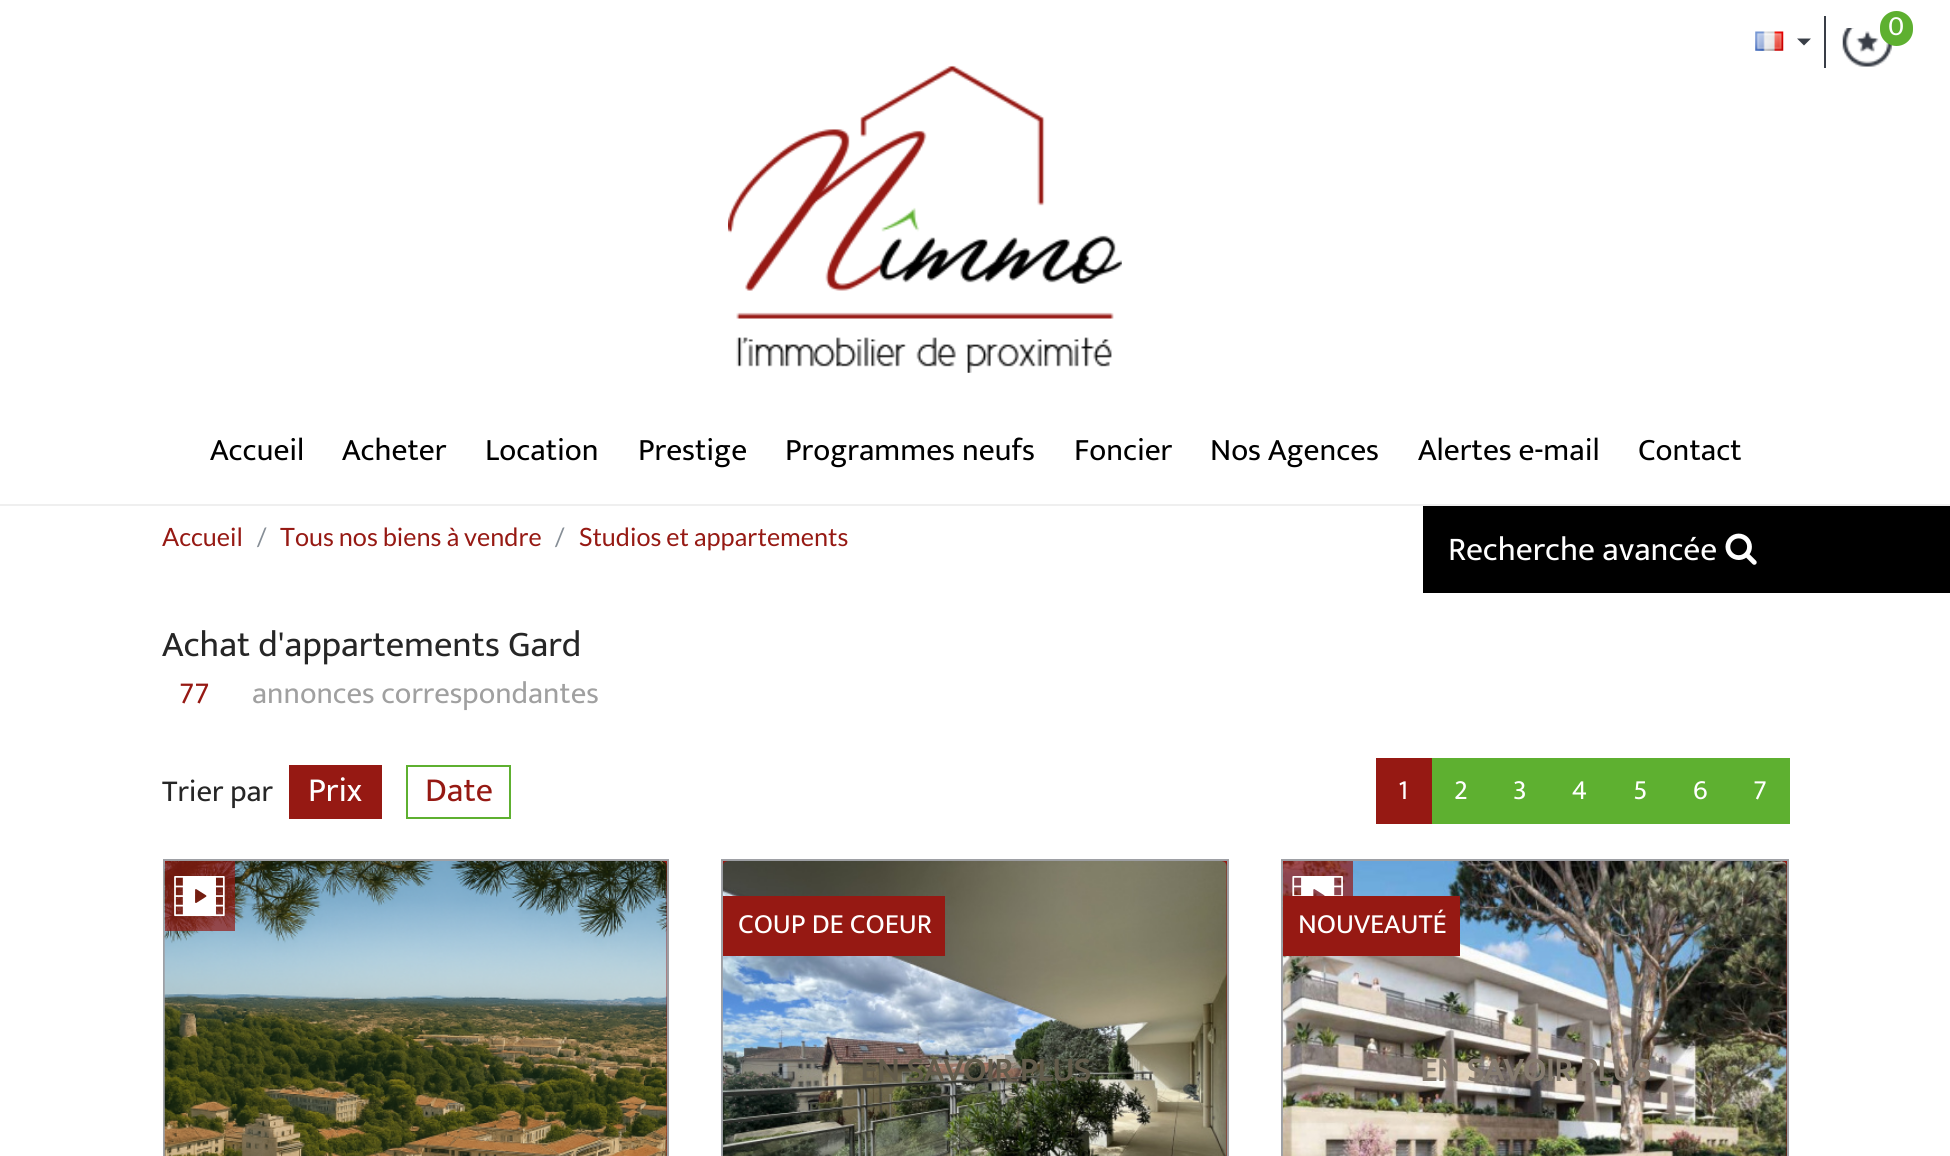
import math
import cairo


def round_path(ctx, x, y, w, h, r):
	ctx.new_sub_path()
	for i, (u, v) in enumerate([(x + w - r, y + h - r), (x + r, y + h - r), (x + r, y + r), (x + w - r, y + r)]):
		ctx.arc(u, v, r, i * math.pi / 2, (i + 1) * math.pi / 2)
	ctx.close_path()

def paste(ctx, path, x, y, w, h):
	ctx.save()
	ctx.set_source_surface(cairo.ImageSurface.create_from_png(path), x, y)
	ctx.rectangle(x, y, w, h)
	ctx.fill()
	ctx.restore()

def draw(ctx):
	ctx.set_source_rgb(1, 1, 1)
	ctx.paint()
	paste(ctx, 'media/1.png', 1755, 31, 29, 20)
	ctx.set_source_rgb(0.224, 0.243, 0.278)
	ctx.new_path()
	ctx.move_to(1797, 38.5)
	ctx.line_to(1811, 38.5)
	ctx.line_to(1804, 45.5)
	ctx.close_path()
	ctx.fill()
	ctx.rectangle(1824, 16, 2, 52)
	ctx.fill()
	paste(ctx, 'media/2.png', 1842, 28, 50, 39)
	ctx.set_source_rgb(0.369, 0.69, 0.188)
	round_path(ctx, 1880, 11, 33, 35, 16.5)
	ctx.fill()
	ctx.select_font_face('Mukta')
	ctx.set_font_size(28)
	ctx.set_source_rgb(1, 1, 1)
	ctx.move_to(1888, 35)
	ctx.show_text('0')
	paste(ctx, 'media/3.png', 728, 65, 394, 308)
	ctx.set_font_size(31.5)
	ctx.set_source_rgb(0, 0, 0)
	for x, y, s in [
		(210, 460, 'Accueil'),
		(342, 460, 'Acheter'),
		(485, 460, 'Location'),
		(638, 460, 'Prestige'),
		(785, 460, 'Programmes neufs'),
		(1074, 460, 'Foncier'),
		(1210, 460, 'Nos Agences'),
		(1418, 460, 'Alertes e-mail'),
		(1638, 460, 'Contact'),
	]:
		ctx.move_to(x, y)
		ctx.show_text(s)
	ctx.set_source_rgb(0.937, 0.937, 0.937)
	ctx.rectangle(0, 504, 1950, 2)
	ctx.fill()
	ctx.set_source_rgb(0, 0, 0)
	ctx.rectangle(1423, 506, 527, 87)
	ctx.fill()
	ctx.select_font_face('Lato')
	ctx.set_font_size(25.25)
	ctx.set_source_rgb(0.588, 0.098, 0.078)
	ctx.move_to(162, 546)
	ctx.show_text('Accueil')
	ctx.set_source_rgb(0.525, 0.557, 0.588)
	ctx.move_to(257, 546)
	ctx.show_text('/')
	ctx.set_source_rgb(0.588, 0.098, 0.078)
	ctx.move_to(280, 546)
	ctx.show_text('Tous nos biens à vendre')
	ctx.set_source_rgb(0.525, 0.557, 0.588)
	ctx.move_to(555, 546)
	ctx.show_text('/')
	ctx.set_source_rgb(0.588, 0.098, 0.078)
	ctx.move_to(579, 546)
	ctx.show_text('Studios et appartements')
	ctx.select_font_face('Mukta')
	ctx.set_font_size(33.5)
	ctx.set_source_rgb(1, 1, 1)
	ctx.move_to(1448, 560)
	ctx.show_text('Recherche avancée')
	paste(ctx, 'media/4.png', 1725, 533, 32, 32)
	ctx.set_font_size(36.4)
	ctx.set_source_rgb(0.149, 0.149, 0.149)
	ctx.move_to(162, 656)
	ctx.show_text('Achat d\'appartements Gard')
	ctx.set_font_size(30.75)
	ctx.set_source_rgb(0.588, 0.098, 0.078)
	ctx.move_to(179, 703)
	ctx.show_text('77')
	ctx.set_source_rgb(0.627, 0.627, 0.627)
	ctx.move_to(252, 703)
	ctx.show_text('annonces correspondantes')
	ctx.set_source_rgb(0.149, 0.149, 0.149)
	ctx.move_to(162, 801)
	ctx.show_text('Trier par')
	ctx.set_source_rgb(0.588, 0.098, 0.078)
	ctx.rectangle(289, 765, 93, 54)
	ctx.fill()
	ctx.set_font_size(34)
	ctx.set_source_rgb(1, 1, 1)
	ctx.move_to(308, 801)
	ctx.show_text('Prix')
	ctx.rectangle(407, 766, 103, 52)
	ctx.set_source_rgb(0.369, 0.69, 0.188)
	ctx.stroke()
	ctx.set_source_rgb(0.588, 0.098, 0.078)
	ctx.move_to(425, 801)
	ctx.show_text('Date')
	ctx.rectangle(1376, 758, 56, 66)
	ctx.fill()
	ctx.set_font_size(28)
	ctx.set_source_rgb(1, 1, 1)
	ctx.move_to(1398, 799)
	ctx.show_text('1')
	ctx.set_source_rgb(0.369, 0.69, 0.188)
	ctx.rectangle(1432, 758, 358, 66)
	ctx.fill()
	ctx.set_source_rgb(1, 1, 1)
	for x, y, s in [
		(1454, 799, '2'),
		(1513, 799, '3'),
		(1572, 799, '4'),
		(1633, 799, '5'),
		(1693, 799, '6'),
		(1753, 799, '7'),
	]:
		ctx.move_to(x, y)
		ctx.show_text(s)
	ctx.set_source_rgb(0.588, 0.098, 0.078)
	ctx.rectangle(164, 860, 504, 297)
	ctx.fill_preserve()
	ctx.set_source_rgb(0.62, 0.627, 0.647)
	ctx.stroke()
	paste(ctx, 'media/5.png', 164, 861, 503, 295)
	ctx.set_source_rgba(0.588, 0.098, 0.078, 0.7)
	ctx.rectangle(165, 861, 70, 70)
	ctx.fill()
	paste(ctx, 'media/6.png', 174, 876, 51, 41)
	ctx.set_source_rgb(0.588, 0.098, 0.078)
	ctx.rectangle(722, 860, 506, 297)
	ctx.fill_preserve()
	ctx.set_source_rgb(0.62, 0.627, 0.647)
	ctx.stroke()
	paste(ctx, 'media/7.png', 722, 861, 505, 295)
	ctx.set_source_rgb(0.588, 0.098, 0.078)
	ctx.rectangle(723, 896, 222, 60)
	ctx.fill()
	ctx.set_source_rgb(1, 1, 1)
	ctx.move_to(738, 933)
	ctx.show_text('COUP DE COEUR')
	ctx.select_font_face('Mukta', cairo.FONT_SLANT_NORMAL, cairo.FONT_WEIGHT_BOLD)
	ctx.set_font_size(33.5)
	ctx.set_source_rgb(0.388, 0.361, 0.298)
	ctx.move_to(860, 1081)
	ctx.show_text('EN SAVOIR PLUS')
	ctx.set_source_rgb(0.588, 0.098, 0.078)
	ctx.rectangle(1282, 860, 506, 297)
	ctx.fill_preserve()
	ctx.set_source_rgb(0.62, 0.627, 0.647)
	ctx.stroke()
	paste(ctx, 'media/8.png', 1282, 861, 505, 295)
	ctx.set_source_rgba(0.588, 0.098, 0.078, 0.7)
	ctx.rectangle(1283, 861, 70, 35)
	ctx.fill()
	paste(ctx, 'media/9.png', 1292, 876, 51, 20)
	ctx.set_source_rgb(0.588, 0.098, 0.078)
	ctx.rectangle(1283, 896, 177, 60)
	ctx.fill()
	ctx.select_font_face('Mukta')
	ctx.set_font_size(28)
	ctx.set_source_rgb(1, 1, 1)
	ctx.move_to(1298, 933)
	ctx.show_text('NOUVEAUTÉ')
	ctx.select_font_face('Mukta', cairo.FONT_SLANT_NORMAL, cairo.FONT_WEIGHT_BOLD)
	ctx.set_font_size(33.5)
	ctx.set_source_rgb(0.522, 0.482, 0.435)
	ctx.move_to(1420, 1081)
	ctx.show_text('EN SAVOIR PLUS')


surface = cairo.ImageSurface(cairo.FORMAT_RGB24, 1950, 1156)
ctx = cairo.Context(surface)
options = cairo.FontOptions()
options.set_hint_metrics(cairo.HINT_METRICS_OFF)
options.set_hint_style(cairo.HINT_STYLE_NONE)
ctx.set_font_options(options)
ctx.set_miter_limit(4)
draw(ctx)
surface.write_to_png('image.png')
